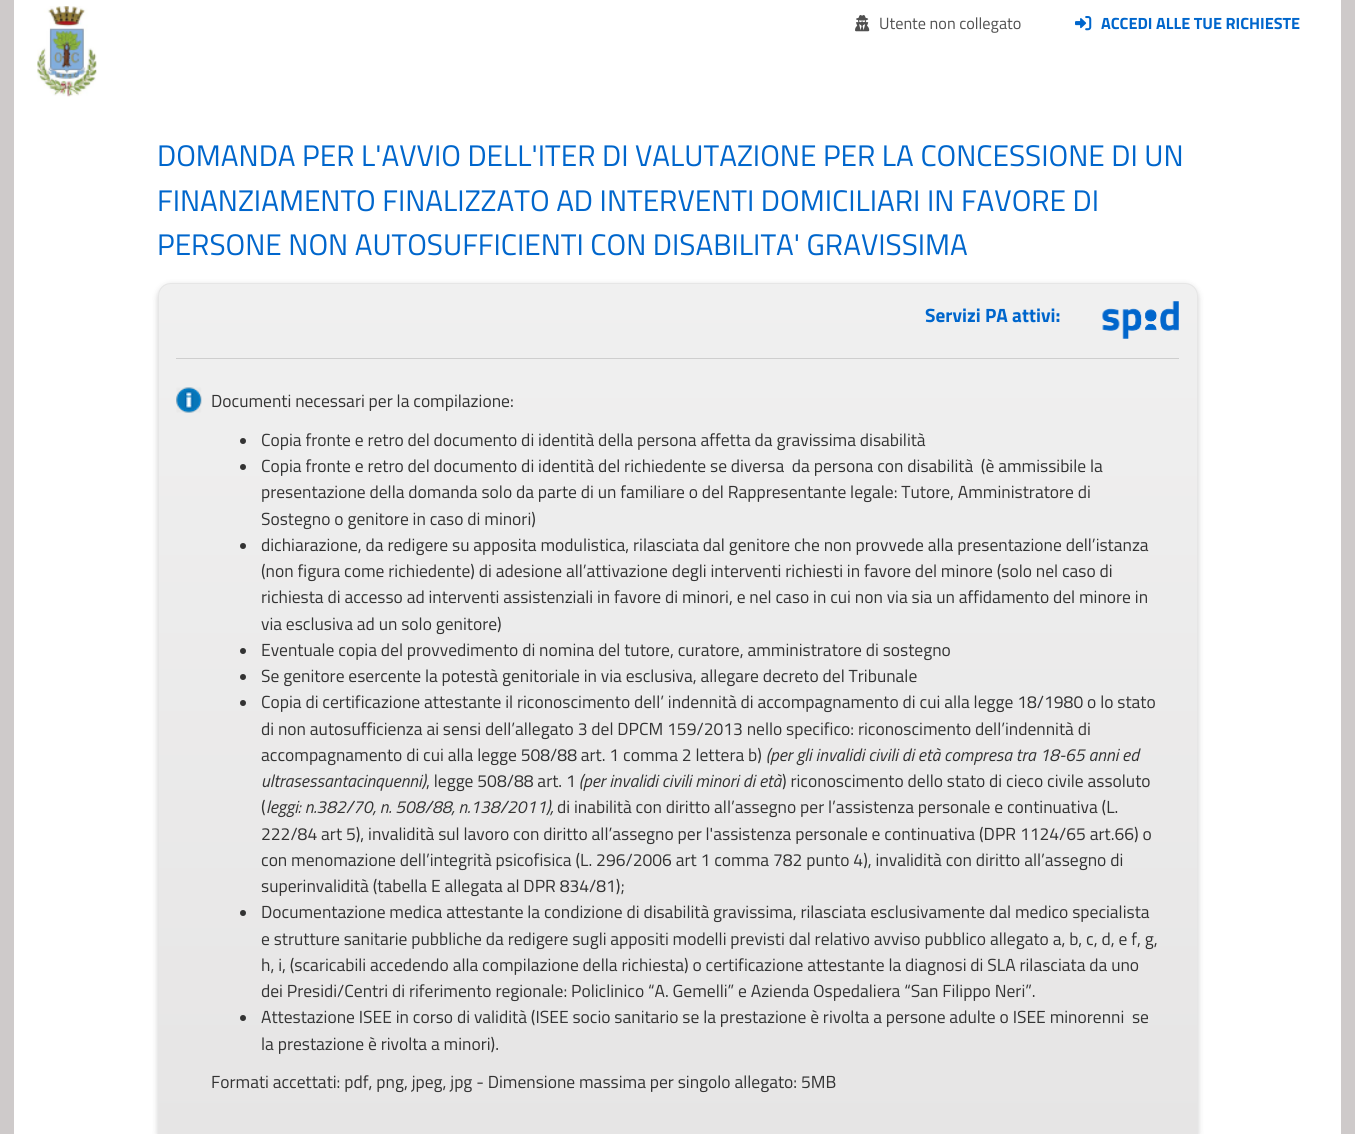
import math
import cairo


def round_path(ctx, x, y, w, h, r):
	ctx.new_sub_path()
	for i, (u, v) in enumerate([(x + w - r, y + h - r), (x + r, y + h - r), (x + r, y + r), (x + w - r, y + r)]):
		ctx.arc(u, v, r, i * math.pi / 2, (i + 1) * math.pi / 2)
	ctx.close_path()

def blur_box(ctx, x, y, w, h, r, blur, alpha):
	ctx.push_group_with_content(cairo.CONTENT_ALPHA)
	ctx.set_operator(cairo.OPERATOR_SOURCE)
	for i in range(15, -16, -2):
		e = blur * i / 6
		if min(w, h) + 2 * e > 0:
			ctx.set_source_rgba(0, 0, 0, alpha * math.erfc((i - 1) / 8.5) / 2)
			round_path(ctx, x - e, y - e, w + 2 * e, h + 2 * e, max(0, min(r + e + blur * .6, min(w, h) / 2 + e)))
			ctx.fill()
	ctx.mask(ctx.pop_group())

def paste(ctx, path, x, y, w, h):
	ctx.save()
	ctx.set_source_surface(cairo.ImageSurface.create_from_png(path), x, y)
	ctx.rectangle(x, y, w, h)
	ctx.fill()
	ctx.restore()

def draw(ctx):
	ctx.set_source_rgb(0.808, 0.792, 0.792)
	ctx.paint()
	ctx.set_source_rgb(1, 1, 1)
	ctx.rectangle(14, 0, 1327, 1134)
	ctx.fill()
	paste(ctx, 'media/1.png', 37, 6, 60, 91)
	paste(ctx, 'media/2.png', 855, 15, 15, 17)
	ctx.select_font_face('Titillium Web')
	ctx.set_font_size(16.25)
	ctx.set_source_rgb(0.314, 0.314, 0.314)
	ctx.move_to(879, 29)
	ctx.show_text('Utente non collegato')
	paste(ctx, 'media/3.png', 1075, 16, 17, 15)
	ctx.select_font_face('Titillium Web', cairo.FONT_SLANT_NORMAL, cairo.FONT_WEIGHT_BOLD)
	ctx.set_source_rgb(0, 0.4, 0.8)
	ctx.move_to(1101, 29)
	ctx.show_text('ACCEDI ALLE TUE RICHIESTE')
	ctx.select_font_face('Titillium Web')
	ctx.set_font_size(29.75)
	for x, y, s in [
		(157, 166, 'DOMANDA PER L\'AVVIO DELL\'ITER DI VALUTAZIONE PER LA CONCESSIONE DI UN'),
		(157, 211, 'FINANZIAMENTO FINALIZZATO AD INTERVENTI DOMICILIARI IN FAVORE DI'),
		(157, 255, 'PERSONE NON AUTOSUFFICIENTI CON DISABILITA\' GRAVISSIMA'),
	]:
		ctx.move_to(x, y)
		ctx.show_text(s)
	ctx.set_source_rgb(0.122, 0.106, 0.122)
	blur_box(ctx, 158, 285, 1040, 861, 13, 3, 0.22)
	ctx.save()
	round_path(ctx, 158, 283, 1040, 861, 13)
	ctx.clip()
	gradient = cairo.LinearGradient(678, 284, 678, 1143)
	gradient.add_color_stop_rgba(0, 0.941, 0.941, 0.941, 1)
	gradient.add_color_stop_rgba(1, 0.902, 0.898, 0.898, 1)
	ctx.set_source(gradient)
	ctx.rectangle(158, 284, 1040, 850)
	ctx.fill()
	ctx.restore()
	round_path(ctx, 158.5, 283.5, 1039, 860, 12.5)
	ctx.set_source_rgb(0.902, 0.902, 0.902)
	ctx.set_line_width(1)
	ctx.stroke()
	ctx.set_source_rgb(0.808, 0.808, 0.808)
	ctx.rectangle(176, 358, 1003, 1)
	ctx.fill()
	ctx.select_font_face('Titillium Web', cairo.FONT_SLANT_NORMAL, cairo.FONT_WEIGHT_BOLD)
	ctx.set_font_size(19.25)
	ctx.set_source_rgb(0, 0.4, 0.8)
	ctx.move_to(925, 322)
	ctx.show_text('Servizi PA attivi:')
	paste(ctx, 'media/4.png', 1102, 301, 77, 38)
	paste(ctx, 'media/5.png', 176, 387, 26, 26)
	ctx.select_font_face('Titillium Web')
	ctx.set_font_size(17.5)
	ctx.set_source_rgb(0.2, 0.2, 0.2)
	ctx.move_to(211, 407)
	ctx.show_text('Documenti necessari per la compilazione:')
	ctx.new_path()
	ctx.arc(243, 441, 3, 0, 2 * math.pi)
	ctx.fill()
	ctx.move_to(261, 446)
	ctx.show_text('Copia fronte e retro del documento di identità della persona affetta da gravissima disabilità')
	ctx.new_path()
	ctx.arc(243, 467, 3, 0, 2 * math.pi)
	ctx.fill()
	for x, y, s in [
		(261, 472, 'Copia fronte e retro del documento di identità del richiedente se diversa  da persona con disabilità  (è ammissibile la'),
		(261, 498, 'presentazione della domanda solo da parte di un familiare o del Rappresentante legale: Tutore, Amministratore di'),
		(261, 525, 'Sostegno o genitore in caso di minori)'),
	]:
		ctx.move_to(x, y)
		ctx.show_text(s)
	ctx.new_path()
	ctx.arc(243, 546, 3, 0, 2 * math.pi)
	ctx.fill()
	for x, y, s in [
		(261, 551, 'dichiarazione, da redigere su apposita modulistica, rilasciata dal genitore che non provvede alla presentazione dell’istanza'),
		(261, 577, '(non figura come richiedente) di adesione all’attivazione degli interventi richiesti in favore del minore (solo nel caso di'),
		(261, 603, 'richiesta di accesso ad interventi assistenziali in favore di minori, e nel caso in cui non via sia un affidamento del minore in'),
		(261, 630, 'via esclusiva ad un solo genitore)'),
	]:
		ctx.move_to(x, y)
		ctx.show_text(s)
	ctx.new_path()
	ctx.arc(243, 651, 3, 0, 2 * math.pi)
	ctx.fill()
	ctx.move_to(261, 656)
	ctx.show_text('Eventuale copia del provvedimento di nomina del tutore, curatore, amministratore di sostegno')
	ctx.new_path()
	ctx.arc(243, 677, 3, 0, 2 * math.pi)
	ctx.fill()
	ctx.move_to(261, 682)
	ctx.show_text('Se genitore esercente la potestà genitoriale in via esclusiva, allegare decreto del Tribunale')
	ctx.new_path()
	ctx.arc(243, 703, 3, 0, 2 * math.pi)
	ctx.fill()
	for x, y, s in [
		(261, 708, 'Copia di certificazione attestante il riconoscimento dell’ indennità di accompagnamento di cui alla legge 18/1980 o lo stato'),
		(261, 735, 'di non autosufficienza ai sensi dell’allegato 3 del DPCM 159/2013 nello specifico: riconoscimento dell’indennità di'),
		(261, 761, 'accompagnamento di cui alla legge 508/88 art. 1 comma 2 lettera b)'),
	]:
		ctx.move_to(x, y)
		ctx.show_text(s)
	ctx.select_font_face('Titillium Web', cairo.FONT_SLANT_ITALIC)
	ctx.move_to(766, 761)
	ctx.show_text('(per gli invalidi civili di età compresa tra 18-65 anni ed')
	ctx.move_to(261, 787)
	ctx.show_text('ultrasessantacinquenni)')
	ctx.select_font_face('Titillium Web')
	ctx.move_to(426, 787)
	ctx.show_text(', legge 508/88 art. 1')
	ctx.select_font_face('Titillium Web', cairo.FONT_SLANT_ITALIC)
	ctx.move_to(579, 787)
	ctx.show_text('(per invalidi civili minori di età')
	ctx.select_font_face('Titillium Web')
	ctx.move_to(782, 787)
	ctx.show_text(') riconoscimento dello stato di cieco civile assoluto')
	ctx.move_to(261, 813)
	ctx.show_text('(')
	ctx.select_font_face('Titillium Web', cairo.FONT_SLANT_ITALIC)
	ctx.move_to(266, 813)
	ctx.show_text('leggi: n.382/70, n. 508/88, n.138/2011),')
	ctx.select_font_face('Titillium Web')
	for x, y, s in [
		(557, 813, 'di inabilità con diritto all’assegno per l’assistenza personale e continuativa (L.'),
		(261, 840, '222/84 art 5), invalidità sul lavoro con diritto all’assegno per l\'assistenza personale e continuativa (DPR 1124/65 art.66) o'),
		(261, 866, 'con menomazione dell’integrità psicofisica (L. 296/2006 art 1 comma 782 punto 4), invalidità con diritto all’assegno di'),
		(261, 892, 'superinvalidità (tabella E allegata al DPR 834/81);'),
	]:
		ctx.move_to(x, y)
		ctx.show_text(s)
	ctx.new_path()
	ctx.arc(243, 913, 3, 0, 2 * math.pi)
	ctx.fill()
	for x, y, s in [
		(261, 918, 'Documentazione medica attestante la condizione di disabilità gravissima, rilasciata esclusivamente dal medico specialista'),
		(261, 945, 'e strutture sanitarie pubbliche da redigere sugli appositi modelli previsti dal relativo avviso pubblico allegato a, b, c, d, e f, g,'),
		(261, 971, 'h, i, (scaricabili accedendo alla compilazione della richiesta) o certificazione attestante la diagnosi di SLA rilasciata da uno'),
		(261, 997, 'dei Presidi/Centri di riferimento regionale: Policlinico “A. Gemelli” e Azienda Ospedaliera “San Filippo Neri”.'),
	]:
		ctx.move_to(x, y)
		ctx.show_text(s)
	ctx.new_path()
	ctx.arc(243, 1018, 3, 0, 2 * math.pi)
	ctx.fill()
	for x, y, s in [
		(261, 1023, 'Attestazione ISEE in corso di validità (ISEE socio sanitario se la prestazione è rivolta a persone adulte o ISEE minorenni  se'),
		(261, 1050, 'la prestazione è rivolta a minori).'),
		(211, 1088, 'Formati accettati: pdf, png, jpeg, jpg - Dimensione massima per singolo allegato: 5MB'),
	]:
		ctx.move_to(x, y)
		ctx.show_text(s)


surface = cairo.ImageSurface(cairo.FORMAT_RGB24, 1355, 1134)
ctx = cairo.Context(surface)
options = cairo.FontOptions()
options.set_hint_metrics(cairo.HINT_METRICS_OFF)
options.set_hint_style(cairo.HINT_STYLE_NONE)
ctx.set_font_options(options)
ctx.set_miter_limit(4)
draw(ctx)
surface.write_to_png('image.png')
